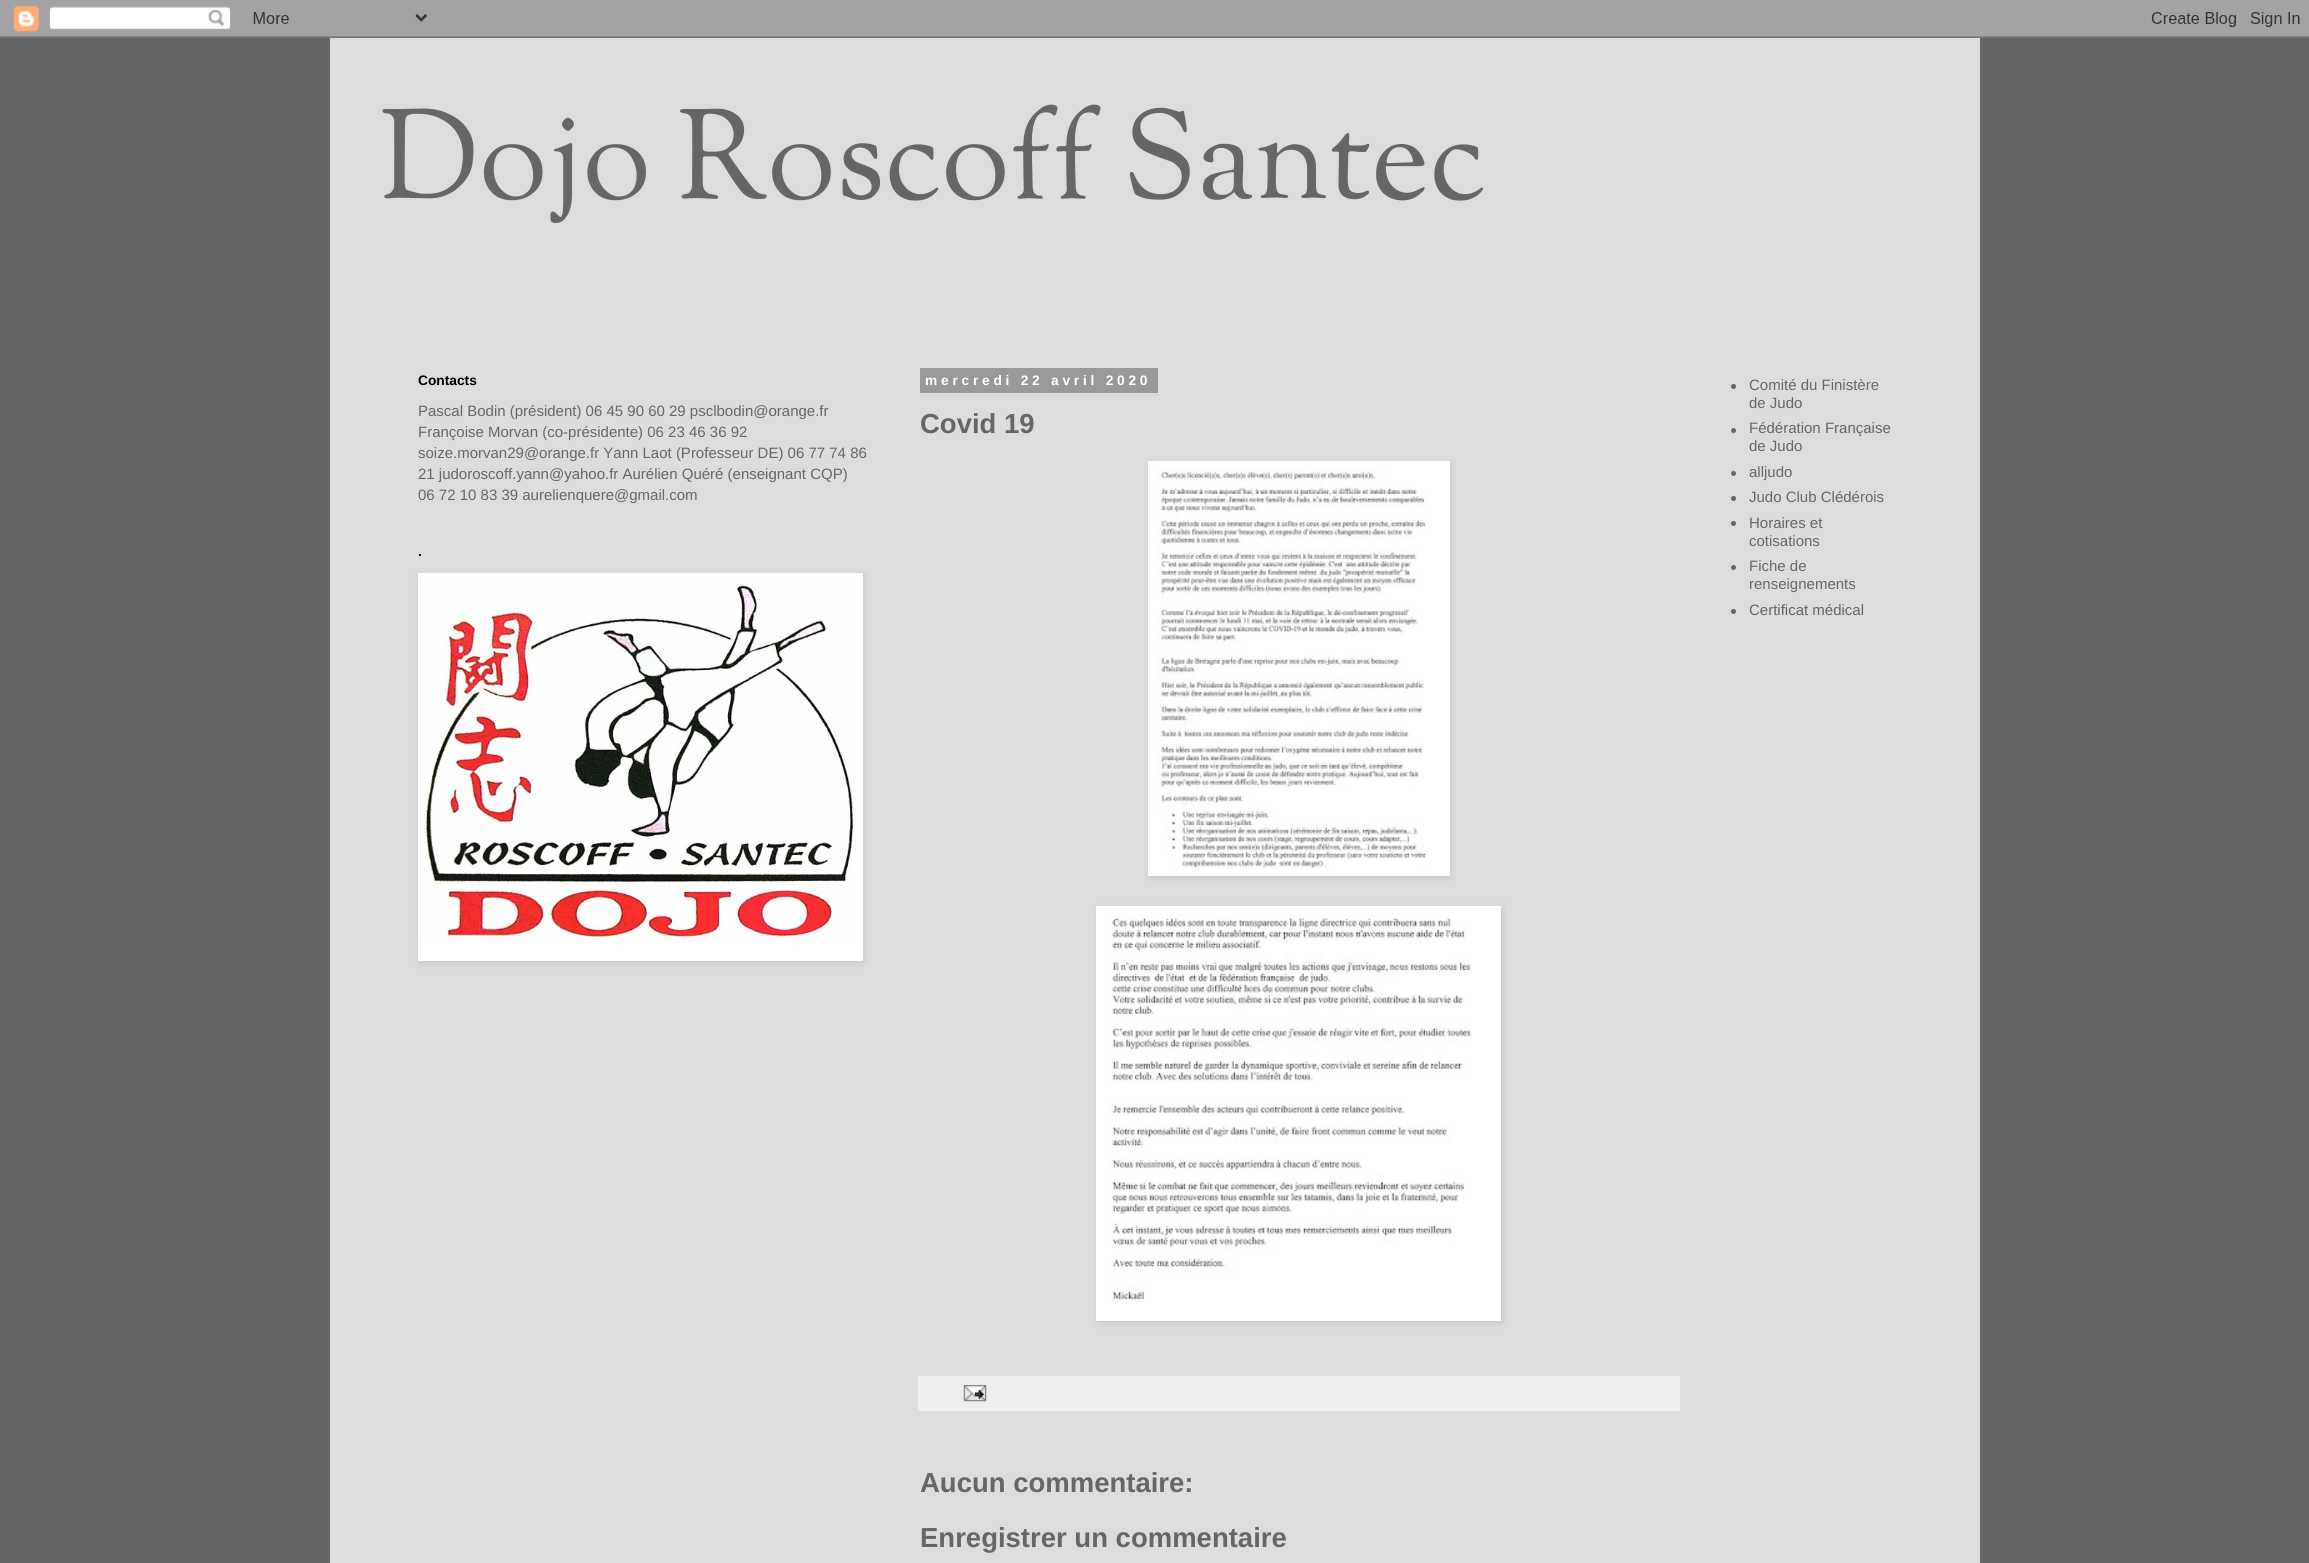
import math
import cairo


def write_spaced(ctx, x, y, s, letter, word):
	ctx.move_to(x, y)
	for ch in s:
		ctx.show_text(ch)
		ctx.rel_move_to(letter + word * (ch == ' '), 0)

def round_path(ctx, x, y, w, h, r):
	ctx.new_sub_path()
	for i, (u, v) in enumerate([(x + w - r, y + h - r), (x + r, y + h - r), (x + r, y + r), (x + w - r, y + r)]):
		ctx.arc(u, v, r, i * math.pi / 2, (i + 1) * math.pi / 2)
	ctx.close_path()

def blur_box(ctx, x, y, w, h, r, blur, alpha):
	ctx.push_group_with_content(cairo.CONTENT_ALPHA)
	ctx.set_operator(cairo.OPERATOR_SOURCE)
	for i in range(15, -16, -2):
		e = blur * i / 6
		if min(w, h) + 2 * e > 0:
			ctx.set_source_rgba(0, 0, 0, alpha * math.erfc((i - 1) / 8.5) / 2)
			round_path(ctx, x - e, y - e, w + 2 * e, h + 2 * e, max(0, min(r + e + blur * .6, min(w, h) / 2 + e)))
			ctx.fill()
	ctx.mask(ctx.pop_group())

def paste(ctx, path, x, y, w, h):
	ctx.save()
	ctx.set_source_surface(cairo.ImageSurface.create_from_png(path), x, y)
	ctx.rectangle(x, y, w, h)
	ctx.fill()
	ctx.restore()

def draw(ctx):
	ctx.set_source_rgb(0.4, 0.4, 0.4)
	ctx.paint()
	paste(ctx, 'media/1.png', 0, 0, 2309, 38)
	ctx.set_source_rgb(0.867, 0.867, 0.867)
	ctx.rectangle(330, 38, 1650, 1525)
	ctx.fill()
	ctx.select_font_face('Sorts Mill Goudy')
	ctx.set_font_size(125)
	ctx.set_source_rgb(0.4, 0.4, 0.4)
	ctx.move_to(380, 198)
	ctx.show_text('Dojo Roscoff Santec')
	ctx.select_font_face('Liberation Sans', cairo.FONT_SLANT_NORMAL, cairo.FONT_WEIGHT_BOLD)
	ctx.set_font_size(13.75)
	ctx.set_source_rgb(0, 0, 0)
	ctx.move_to(418, 385)
	ctx.show_text('Contacts')
	ctx.select_font_face('Liberation Sans')
	ctx.set_font_size(15)
	ctx.set_source_rgb(0.4, 0.4, 0.4)
	for x, y, s in [
		(418, 416, 'Pascal Bodin (président) 06 45 90 60 29 psclbodin@orange.fr'),
		(418, 437, 'Françoise Morvan (co-présidente) 06 23 46 36 92'),
		(418, 458, 'soize.morvan29@orange.fr Yann Laot (Professeur DE) 06 77 74 86'),
		(418, 479, '21 judoroscoff.yann@yahoo.fr Aurélien Quéré (enseignant CQP)'),
		(418, 500, '06 72 10 83 39 aurelienquere@gmail.com'),
	]:
		ctx.move_to(x, y)
		ctx.show_text(s)
	ctx.select_font_face('Liberation Sans', cairo.FONT_SLANT_NORMAL, cairo.FONT_WEIGHT_BOLD)
	ctx.set_font_size(13.75)
	ctx.set_source_rgb(0, 0, 0)
	ctx.move_to(418, 556)
	ctx.show_text('.')
	ctx.set_source_rgb(0, 0, 0)
	blur_box(ctx, 419, 574, 445, 389, 0, 3, 0.1)
	ctx.set_source_rgb(1, 1, 1)
	ctx.rectangle(418, 573, 445, 388)
	ctx.fill()
	paste(ctx, 'media/2.png', 421, 582, 435, 356)
	ctx.set_source_rgb(0.6, 0.6, 0.6)
	ctx.rectangle(920, 368, 238, 25)
	ctx.fill()
	ctx.set_source_rgb(1, 1, 1)
	write_spaced(ctx, 925, 385, 'mercredi 22 avril 2020', 3.75, 0)
	ctx.set_font_size(27.5)
	ctx.set_source_rgb(0.4, 0.4, 0.4)
	ctx.move_to(920, 433)
	ctx.show_text('Covid 19')
	ctx.set_source_rgb(0, 0, 0)
	blur_box(ctx, 1149, 463, 302, 415, 0, 3, 0.1)
	ctx.set_source_rgb(1, 1, 1)
	ctx.rectangle(1148, 461, 302, 415)
	ctx.fill()
	paste(ctx, 'media/3.png', 1155, 469, 275, 400)
	ctx.set_source_rgb(0, 0, 0)
	blur_box(ctx, 1098, 908, 405, 415, 0, 3, 0.1)
	ctx.set_source_rgb(1, 1, 1)
	ctx.rectangle(1096, 906, 405, 415)
	ctx.fill()
	paste(ctx, 'media/4.png', 1105, 914, 367, 388)
	ctx.set_source_rgb(0.933, 0.933, 0.933)
	ctx.rectangle(918, 1376, 762, 35)
	ctx.fill()
	paste(ctx, 'media/5.png', 963, 1385, 24, 17)
	ctx.set_source_rgb(0.4, 0.4, 0.4)
	ctx.move_to(920, 1492)
	ctx.show_text('Aucun commentaire:')
	ctx.move_to(920, 1547)
	ctx.show_text('Enregistrer un commentaire')
	ctx.new_path()
	ctx.arc(1733.5, 386.5, 2.5, 0, 2 * math.pi)
	ctx.fill()
	ctx.select_font_face('Liberation Sans')
	ctx.set_font_size(15)
	ctx.move_to(1749, 390)
	ctx.show_text('Comité du Finistère')
	ctx.move_to(1749, 408)
	ctx.show_text('de Judo')
	ctx.new_path()
	ctx.arc(1733.5, 430.5, 2.5, 0, 2 * math.pi)
	ctx.fill()
	ctx.move_to(1749, 433)
	ctx.show_text('Fédération Française')
	ctx.move_to(1749, 451)
	ctx.show_text('de Judo')
	ctx.new_path()
	ctx.arc(1733.5, 473.5, 2.5, 0, 2 * math.pi)
	ctx.fill()
	ctx.move_to(1749, 477)
	ctx.show_text('alljudo')
	ctx.new_path()
	ctx.arc(1733.5, 498.5, 2.5, 0, 2 * math.pi)
	ctx.fill()
	ctx.move_to(1749, 502)
	ctx.show_text('Judo Club Clédérois')
	ctx.new_path()
	ctx.arc(1733.5, 523.5, 2.5, 0, 2 * math.pi)
	ctx.fill()
	ctx.move_to(1749, 528)
	ctx.show_text('Horaires et')
	ctx.move_to(1749, 546)
	ctx.show_text('cotisations')
	ctx.new_path()
	ctx.arc(1733.5, 567.5, 2.5, 0, 2 * math.pi)
	ctx.fill()
	ctx.move_to(1749, 571)
	ctx.show_text('Fiche de')
	ctx.move_to(1749, 589)
	ctx.show_text('renseignements')
	ctx.new_path()
	ctx.arc(1733.5, 611.5, 2.5, 0, 2 * math.pi)
	ctx.fill()
	ctx.move_to(1749, 615)
	ctx.show_text('Certificat médical')


surface = cairo.ImageSurface(cairo.FORMAT_RGB24, 2309, 1563)
ctx = cairo.Context(surface)
options = cairo.FontOptions()
options.set_hint_metrics(cairo.HINT_METRICS_OFF)
options.set_hint_style(cairo.HINT_STYLE_NONE)
ctx.set_font_options(options)
ctx.set_miter_limit(4)
draw(ctx)
surface.write_to_png('image.png')
